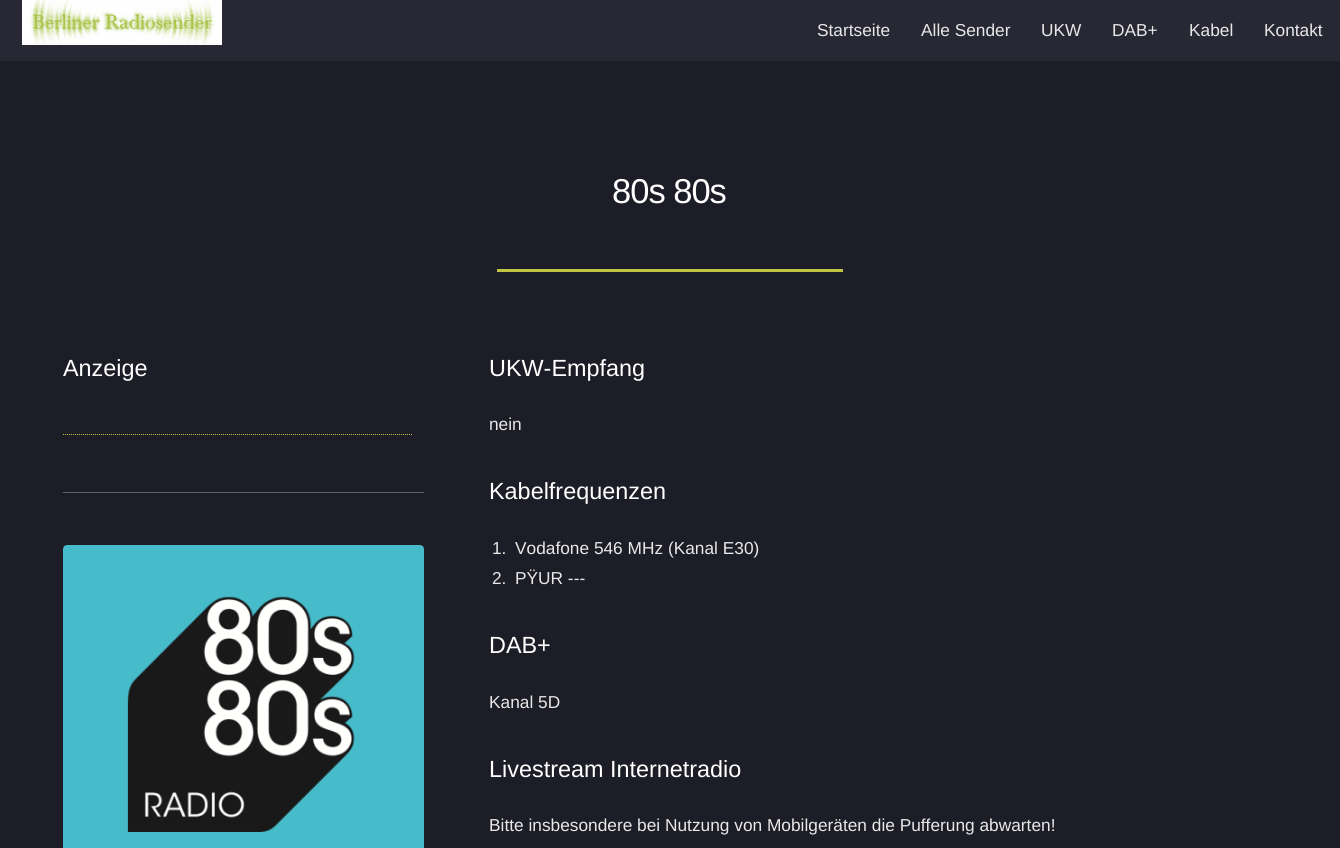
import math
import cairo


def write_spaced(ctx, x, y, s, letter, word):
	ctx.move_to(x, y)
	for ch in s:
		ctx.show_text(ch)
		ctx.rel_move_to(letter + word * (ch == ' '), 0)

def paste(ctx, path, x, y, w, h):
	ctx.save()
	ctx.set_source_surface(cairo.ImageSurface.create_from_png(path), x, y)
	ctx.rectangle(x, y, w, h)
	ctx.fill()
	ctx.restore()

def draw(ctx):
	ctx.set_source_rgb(0.11, 0.114, 0.149)
	ctx.paint()
	ctx.set_source_rgb(0.153, 0.157, 0.2)
	ctx.rectangle(0, 0, 1340, 61)
	ctx.fill()
	paste(ctx, 'media/1.png', 22, 0, 200, 45)
	ctx.select_font_face('Liberation Sans')
	ctx.set_font_size(17.3)
	ctx.set_source_rgb(0.91, 0.91, 0.914)
	for x, y, s in [
		(817, 36, 'Startseite'),
		(921, 36, 'Alle Sender'),
		(1041, 36, 'UKW'),
		(1112, 36, 'DAB+'),
		(1189, 36, 'Kabel'),
		(1264, 36, 'Kontakt'),
	]:
		ctx.move_to(x, y)
		ctx.show_text(s)
	ctx.set_font_size(34.5)
	ctx.set_source_rgb(1, 1, 1)
	write_spaced(ctx, 612, 203, '80s 80s', -1, 0)
	ctx.set_source_rgb(0.757, 0.769, 0.263)
	ctx.rectangle(497, 269, 346, 3)
	ctx.fill()
	ctx.set_font_size(23.4)
	ctx.set_source_rgb(1, 1, 1)
	ctx.move_to(63, 376)
	ctx.show_text('Anzeige')
	ctx.new_path()
	ctx.move_to(63, 434.5)
	ctx.line_to(412, 434.5)
	ctx.set_source_rgb(0.757, 0.769, 0.263)
	ctx.set_line_width(1)
	ctx.set_dash([1, 1])
	ctx.stroke()
	ctx.set_source_rgb(0.376, 0.38, 0.404)
	ctx.rectangle(63, 492, 361, 1)
	ctx.fill()
	paste(ctx, 'media/2.png', 63, 545, 361, 303)
	ctx.set_source_rgb(1, 1, 1)
	ctx.move_to(489, 376)
	ctx.show_text('UKW-Empfang')
	ctx.set_font_size(17.3)
	ctx.set_source_rgb(0.91, 0.91, 0.914)
	ctx.move_to(489, 430)
	ctx.show_text('nein')
	ctx.set_font_size(23.4)
	ctx.set_source_rgb(1, 1, 1)
	ctx.move_to(489, 499)
	ctx.show_text('Kabelfrequenzen')
	ctx.set_font_size(17.3)
	ctx.set_source_rgb(0.91, 0.91, 0.914)
	for x, y, s in [
		(492, 554, '1.'),
		(515, 554, 'Vodafone 546 MHz (Kanal E30)'),
		(492, 584, '2.'),
		(515, 584, 'PŸUR ---'),
	]:
		ctx.move_to(x, y)
		ctx.show_text(s)
	ctx.set_font_size(23.4)
	ctx.set_source_rgb(1, 1, 1)
	ctx.move_to(489, 653)
	ctx.show_text('DAB+')
	ctx.set_font_size(17.3)
	ctx.set_source_rgb(0.91, 0.91, 0.914)
	ctx.move_to(489, 708)
	ctx.show_text('Kanal 5D')
	ctx.set_font_size(23.4)
	ctx.set_source_rgb(1, 1, 1)
	ctx.move_to(489, 777)
	ctx.show_text('Livestream Internetradio')
	ctx.set_font_size(17.3)
	ctx.set_source_rgb(0.91, 0.91, 0.914)
	ctx.move_to(489, 831)
	ctx.show_text('Bitte insbesondere bei Nutzung von Mobilgeräten die Pufferung abwarten!')


surface = cairo.ImageSurface(cairo.FORMAT_RGB24, 1340, 848)
ctx = cairo.Context(surface)
options = cairo.FontOptions()
options.set_hint_metrics(cairo.HINT_METRICS_OFF)
options.set_hint_style(cairo.HINT_STYLE_NONE)
ctx.set_font_options(options)
ctx.set_miter_limit(4)
draw(ctx)
surface.write_to_png('image.png')
